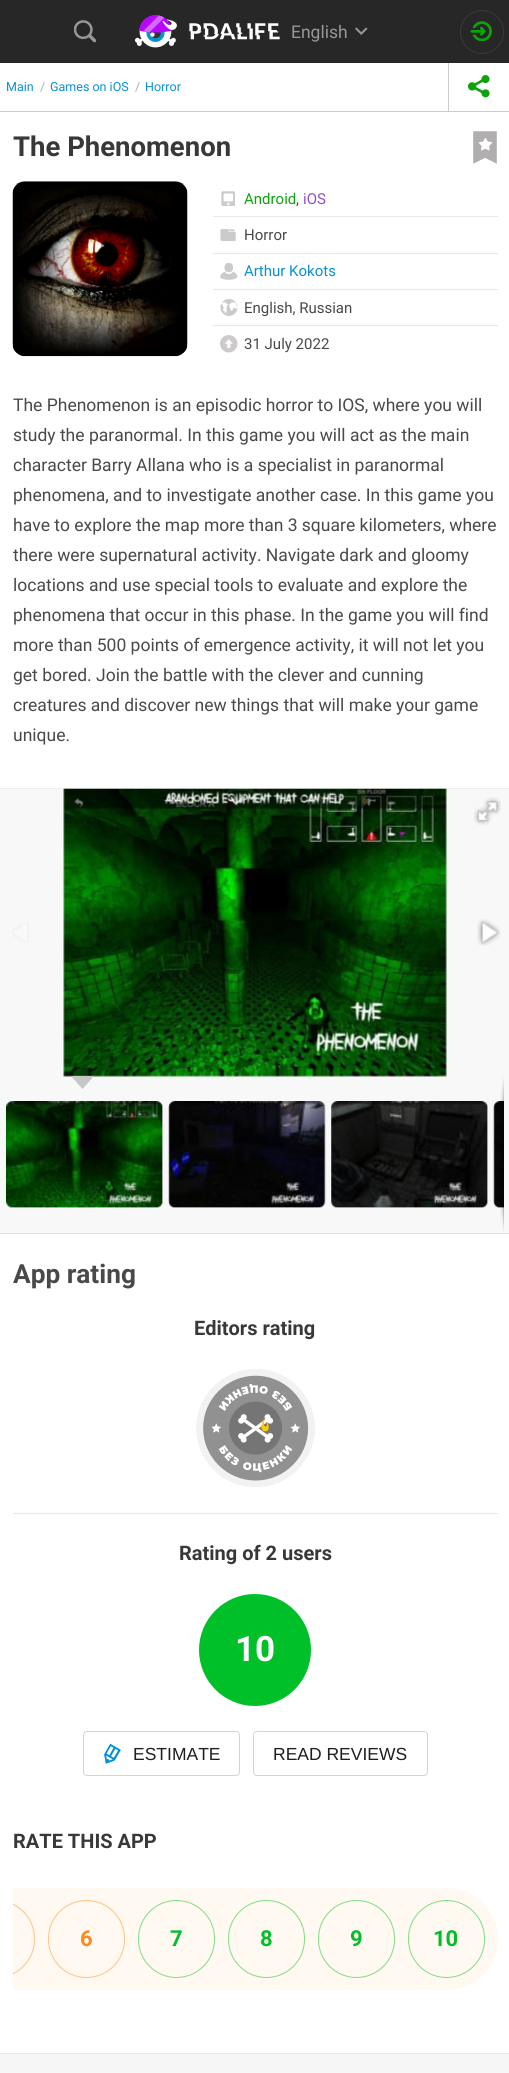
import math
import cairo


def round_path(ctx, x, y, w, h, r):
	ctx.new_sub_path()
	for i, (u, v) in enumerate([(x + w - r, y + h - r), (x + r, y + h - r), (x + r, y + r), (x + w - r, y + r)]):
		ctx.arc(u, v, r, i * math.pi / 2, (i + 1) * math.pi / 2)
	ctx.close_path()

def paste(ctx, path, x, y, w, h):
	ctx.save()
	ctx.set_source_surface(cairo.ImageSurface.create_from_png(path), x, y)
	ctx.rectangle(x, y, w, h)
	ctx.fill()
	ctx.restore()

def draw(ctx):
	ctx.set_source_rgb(1, 1, 1)
	ctx.paint()
	ctx.set_source_rgb(0.153, 0.153, 0.153)
	ctx.rectangle(0, 0, 509, 63)
	ctx.fill()
	paste(ctx, 'media/1.png', 74, 20, 22, 23)
	paste(ctx, 'media/2.png', 135, 15, 145, 33)
	ctx.select_font_face('Roboto')
	ctx.set_font_size(17.5)
	ctx.set_source_rgb(0.592, 0.592, 0.592)
	ctx.move_to(291, 38)
	ctx.show_text('English')
	paste(ctx, 'media/3.png', 355, 27, 13, 8)
	ctx.arc(482, 32, 21.5, 0, 2 * math.pi)
	ctx.set_source_rgb(0.224, 0.224, 0.224)
	ctx.set_line_width(1)
	ctx.stroke()
	paste(ctx, 'media/4.png', 470, 21, 22, 20)
	ctx.set_source_rgb(0.8, 0.8, 0.8)
	ctx.rectangle(0, 111, 509, 1)
	ctx.fill()
	ctx.set_font_size(12.5)
	ctx.set_source_rgb(0.039, 0.565, 0.835)
	ctx.move_to(6, 91)
	ctx.show_text('Main')
	ctx.set_source_rgb(0.69, 0.682, 0.682)
	ctx.move_to(40, 91)
	ctx.show_text('/')
	ctx.set_source_rgb(0.039, 0.565, 0.835)
	ctx.move_to(50, 91)
	ctx.show_text('Games on iOS')
	ctx.set_source_rgb(0.69, 0.682, 0.682)
	ctx.move_to(135, 91)
	ctx.show_text('/')
	ctx.set_source_rgb(0.039, 0.565, 0.835)
	ctx.move_to(145, 91)
	ctx.show_text('Horror')
	ctx.set_source_rgb(0.8, 0.8, 0.8)
	ctx.rectangle(448, 63, 1, 48)
	ctx.fill()
	paste(ctx, 'media/5.png', 468, 75, 22, 23)
	ctx.select_font_face('Roboto', cairo.FONT_SLANT_NORMAL, cairo.FONT_WEIGHT_BOLD)
	ctx.set_font_size(27.5)
	ctx.set_source_rgb(0.22, 0.22, 0.22)
	ctx.move_to(13, 156)
	ctx.show_text('The Phenomenon')
	paste(ctx, 'media/6.png', 473, 131, 24, 33)
	paste(ctx, 'media/7.png', 12, 181, 176, 176)
	paste(ctx, 'media/8.png', 221, 191, 14, 15)
	ctx.select_font_face('Roboto')
	ctx.set_font_size(15)
	ctx.set_source_rgb(0.043, 0.643, 0.043)
	ctx.move_to(244, 204)
	ctx.show_text('Android')
	ctx.set_source_rgb(0.286, 0.286, 0.286)
	ctx.move_to(296, 204)
	ctx.show_text(',')
	ctx.set_source_rgb(0.553, 0.31, 0.761)
	ctx.move_to(303, 204)
	ctx.show_text('iOS')
	ctx.set_source_rgb(0.91, 0.91, 0.91)
	ctx.rectangle(213, 216, 285, 1)
	ctx.fill()
	paste(ctx, 'media/9.png', 220, 229, 16, 12)
	ctx.set_source_rgb(0.286, 0.286, 0.286)
	ctx.move_to(244, 240)
	ctx.show_text('Horror')
	ctx.set_source_rgb(0.91, 0.91, 0.91)
	ctx.rectangle(213, 253, 285, 1)
	ctx.fill()
	paste(ctx, 'media/10.png', 220, 263, 18, 17)
	ctx.set_source_rgb(0.039, 0.565, 0.835)
	ctx.move_to(244, 276)
	ctx.show_text('Arthur Kokots')
	ctx.set_source_rgb(0.91, 0.91, 0.91)
	ctx.rectangle(213, 289, 285, 1)
	ctx.fill()
	paste(ctx, 'media/11.png', 220, 299, 18, 17)
	ctx.set_source_rgb(0.286, 0.286, 0.286)
	ctx.move_to(244, 313)
	ctx.show_text('English, Russian')
	ctx.set_source_rgb(0.91, 0.91, 0.91)
	ctx.rectangle(213, 325, 285, 1)
	ctx.fill()
	paste(ctx, 'media/12.png', 220, 335, 18, 18)
	ctx.set_source_rgb(0.286, 0.286, 0.286)
	ctx.move_to(244, 349)
	ctx.show_text('31 July 2022')
	ctx.set_font_size(17.5)
	for x, y, s in [
		(13, 411, 'The Phenomenon is an episodic horror to IOS, where you will'),
		(13, 441, 'study the paranormal. In this game you will act as the main'),
		(13, 471, 'character Barry Allana who is a specialist in paranormal'),
		(13, 501, 'phenomena, and to investigate another case. In this game you'),
		(13, 531, 'have to explore the map more than 3 square kilometers, where'),
		(13, 561, 'there were supernatural activity. Navigate dark and gloomy'),
		(13, 591, 'locations and use special tools to evaluate and explore the'),
		(13, 621, 'phenomena that occur in this phase. In the game you will find'),
		(13, 651, 'more than 500 points of emergence activity, it will not let you'),
		(13, 681, 'get bored. Join the battle with the clever and cunning'),
		(13, 711, 'creatures and discover new things that will make your game'),
		(13, 741, 'unique.'),
	]:
		ctx.move_to(x, y)
		ctx.show_text(s)
	ctx.set_source_rgb(0.969, 0.969, 0.969)
	ctx.rectangle(0, 789, 509, 444)
	ctx.fill()
	ctx.set_source_rgb(0.929, 0.929, 0.929)
	ctx.rectangle(0, 788, 509, 1)
	ctx.fill()
	ctx.set_source_rgb(0.882, 0.882, 0.882)
	ctx.rectangle(0, 1233, 509, 1)
	ctx.fill()
	paste(ctx, 'media/13.png', 63, 788, 384, 289)
	paste(ctx, 'media/14.png', 474, 797, 27, 28)
	paste(ctx, 'media/15.png', 12, 922, 17, 21)
	paste(ctx, 'media/16.png', 477, 919, 24, 27)
	ctx.set_source_rgb(0.776, 0.776, 0.776)
	ctx.new_path()
	ctx.move_to(71, 1076)
	ctx.line_to(94, 1076)
	ctx.line_to(82.5, 1089)
	ctx.close_path()
	ctx.fill()
	ctx.set_source_rgb(0.875, 0.875, 0.875)
	round_path(ctx, 6, 1101, 157, 107, 6)
	ctx.fill()
	paste(ctx, 'media/17.png', 6, 1101, 157, 107)
	round_path(ctx, 169, 1101, 156, 107, 6)
	ctx.fill()
	paste(ctx, 'media/18.png', 168, 1101, 158, 107)
	round_path(ctx, 331, 1101, 157, 107, 6)
	ctx.fill()
	paste(ctx, 'media/19.png', 331, 1101, 157, 107)
	ctx.new_path()
	ctx.move_to(500, 1101)
	ctx.line_to(504, 1101)
	ctx.line_to(504, 1208)
	ctx.line_to(500, 1208)
	ctx.curve_to(496.5, 1208, 494, 1205.5, 494, 1202)
	ctx.line_to(494, 1107)
	ctx.curve_to(494, 1103.5, 496.5, 1101, 500, 1101)
	ctx.close_path()
	ctx.fill()
	paste(ctx, 'media/20.png', 493, 1101, 11, 107)
	gradient = cairo.RadialGradient(0, 0, 0, 0, 0, 1)
	gradient.set_matrix(cairo.Matrix(1 / 6.2, 0, 0, 1 / 78, -1 * 504 / 6.2, -1 * 1154 / 78))
	gradient.add_color_stop_rgba(0, 0, 0, 0, 0.4)
	gradient.add_color_stop_rgba(1, 0, 0, 0, 0)
	ctx.set_source(gradient)
	ctx.rectangle(500, 1076, 4, 157)
	ctx.fill()
	gradient = cairo.LinearGradient(503, 1076, 503, 1233)
	gradient.add_color_stop_rgba(0, 0, 0, 0, 0)
	gradient.add_color_stop_rgba(0.25, 0, 0, 0, 0.2)
	gradient.add_color_stop_rgba(0.75, 0, 0, 0, 0.3)
	gradient.add_color_stop_rgba(1, 0, 0, 0, 0)
	ctx.set_source(gradient)
	ctx.rectangle(503, 1076, 1, 157)
	ctx.fill()
	ctx.select_font_face('Roboto', cairo.FONT_SLANT_NORMAL, cairo.FONT_WEIGHT_BOLD)
	ctx.set_font_size(26.25)
	ctx.set_source_rgb(0.286, 0.286, 0.286)
	ctx.move_to(13, 1283)
	ctx.show_text('App rating')
	ctx.set_font_size(20)
	ctx.set_source_rgb(0.22, 0.22, 0.22)
	ctx.move_to(194, 1335)
	ctx.show_text('Editors rating')
	ctx.set_source_rgb(0.91, 0.91, 0.91)
	ctx.rectangle(13, 1513, 485, 1)
	ctx.fill()
	paste(ctx, 'media/21.png', 196, 1369, 119, 119)
	ctx.set_source_rgb(0.22, 0.22, 0.22)
	ctx.move_to(179, 1560)
	ctx.show_text('Rating of 2 users')
	ctx.set_source_rgb(0, 0.753, 0.165)
	ctx.new_path()
	ctx.arc(255, 1650, 56, 0, 2 * math.pi)
	ctx.fill()
	ctx.set_font_size(35)
	ctx.set_source_rgb(1, 1, 1)
	ctx.move_to(235, 1661)
	ctx.show_text('10')
	round_path(ctx, 83.5, 1731.5, 156, 44, 3.5)
	ctx.set_source_rgb(0.835, 0.831, 0.831)
	ctx.stroke()
	paste(ctx, 'media/22.png', 104, 1744, 17, 20)
	ctx.select_font_face('Liberation Sans')
	ctx.set_font_size(17.5)
	ctx.set_source_rgb(0.122, 0.122, 0.122)
	ctx.move_to(133, 1760)
	ctx.show_text('ESTIMATE')
	round_path(ctx, 253.5, 1731.5, 174, 44, 3.5)
	ctx.set_source_rgb(0.835, 0.831, 0.831)
	ctx.stroke()
	ctx.set_source_rgb(0.122, 0.122, 0.122)
	ctx.move_to(273, 1760)
	ctx.show_text('READ REVIEWS')
	ctx.select_font_face('Roboto', cairo.FONT_SLANT_NORMAL, cairo.FONT_WEIGHT_BOLD)
	ctx.set_font_size(20)
	ctx.set_source_rgb(0.22, 0.22, 0.22)
	ctx.move_to(13, 1848)
	ctx.show_text('RATE THIS APP')
	ctx.set_source_rgb(1, 0.976, 0.949)
	ctx.new_path()
	ctx.move_to(13, 1888)
	ctx.line_to(447, 1888)
	ctx.curve_to(475, 1888, 498, 1911, 498, 1939)
	ctx.curve_to(498, 1967, 475, 1990, 447, 1990)
	ctx.line_to(13, 1990)
	ctx.close_path()
	ctx.fill()
	ctx.save()
	ctx.rectangle(13, 1888, 485, 102)
	ctx.clip()
	round_path(ctx, -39.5, 1900.5, 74, 77, 38)
	ctx.set_source_rgb(1, 0.765, 0.506)
	ctx.stroke()
	ctx.restore()
	round_path(ctx, 48.5, 1900.5, 76, 77, 38)
	ctx.set_source_rgb(1, 0.765, 0.506)
	ctx.stroke()
	ctx.set_font_size(22)
	ctx.set_source_rgb(1, 0.541, 0.106)
	ctx.move_to(80, 1946)
	ctx.show_text('6')
	round_path(ctx, 138.5, 1900.5, 76, 77, 38)
	ctx.set_source_rgb(0.498, 0.871, 0.518)
	ctx.stroke()
	ctx.set_source_rgb(0, 0.753, 0.165)
	ctx.move_to(170, 1946)
	ctx.show_text('7')
	round_path(ctx, 228.5, 1900.5, 76, 77, 38)
	ctx.set_source_rgb(0.498, 0.871, 0.518)
	ctx.stroke()
	ctx.set_source_rgb(0, 0.753, 0.165)
	ctx.move_to(260, 1946)
	ctx.show_text('8')
	round_path(ctx, 318.5, 1900.5, 76, 77, 38)
	ctx.set_source_rgb(0.498, 0.871, 0.518)
	ctx.stroke()
	ctx.set_source_rgb(0, 0.753, 0.165)
	ctx.move_to(350, 1946)
	ctx.show_text('9')
	round_path(ctx, 408.5, 1900.5, 76, 77, 38)
	ctx.set_source_rgb(0.498, 0.871, 0.518)
	ctx.stroke()
	ctx.set_source_rgb(0, 0.753, 0.165)
	ctx.move_to(433, 1946)
	ctx.show_text('10')
	gradient = cairo.LinearGradient(255, 2054, 255, 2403)
	gradient.add_color_stop_rgba(0, 0.965, 0.965, 0.965, 1)
	gradient.add_color_stop_rgba(1, 1, 1, 1, 1)
	ctx.set_source(gradient)
	ctx.rectangle(0, 2054, 509, 19)
	ctx.fill()
	ctx.set_source_rgb(0.906, 0.906, 0.906)
	ctx.rectangle(0, 2053, 509, 1)
	ctx.fill()


surface = cairo.ImageSurface(cairo.FORMAT_RGB24, 509, 2073)
ctx = cairo.Context(surface)
options = cairo.FontOptions()
options.set_hint_metrics(cairo.HINT_METRICS_OFF)
options.set_hint_style(cairo.HINT_STYLE_NONE)
ctx.set_font_options(options)
ctx.set_miter_limit(4)
draw(ctx)
surface.write_to_png('image.png')
